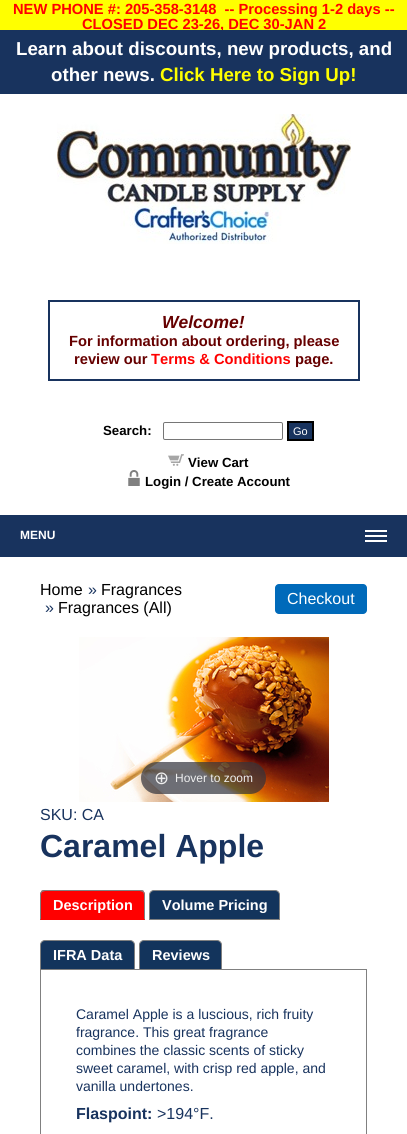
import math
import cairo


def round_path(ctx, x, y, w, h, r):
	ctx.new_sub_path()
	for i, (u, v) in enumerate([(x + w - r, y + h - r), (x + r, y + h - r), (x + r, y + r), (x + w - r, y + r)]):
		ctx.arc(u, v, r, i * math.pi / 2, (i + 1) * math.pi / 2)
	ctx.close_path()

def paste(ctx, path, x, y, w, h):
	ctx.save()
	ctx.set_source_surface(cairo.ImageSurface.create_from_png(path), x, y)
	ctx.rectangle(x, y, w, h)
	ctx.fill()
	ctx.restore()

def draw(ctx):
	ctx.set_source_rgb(1, 1, 1)
	ctx.paint()
	ctx.set_source_rgb(1, 1, 0)
	ctx.rectangle(0, 0, 407, 30)
	ctx.fill()
	ctx.select_font_face('Liberation Sans', cairo.FONT_SLANT_NORMAL, cairo.FONT_WEIGHT_BOLD)
	ctx.set_font_size(14.7)
	ctx.set_source_rgb(1, 0, 0)
	ctx.move_to(13, 14)
	ctx.show_text('NEW PHONE #: 205-358-3148  -- Processing 1-2 days --')
	ctx.save()
	ctx.rectangle(0, 0, 407, 30)
	ctx.clip()
	ctx.move_to(82, 29)
	ctx.show_text('CLOSED DEC 23-26, DEC 30-JAN 2')
	ctx.restore()
	ctx.set_source_rgb(0.094, 0.2, 0.369)
	ctx.rectangle(0, 30, 407, 64)
	ctx.fill()
	ctx.set_font_size(18.7)
	ctx.set_source_rgb(1, 1, 1)
	ctx.move_to(16, 55)
	ctx.show_text('Learn about discounts, new products, and')
	ctx.move_to(51, 81)
	ctx.show_text('other news.')
	ctx.set_source_rgb(1, 1, 0)
	ctx.move_to(160, 81)
	ctx.show_text('Click Here to Sign Up!')
	paste(ctx, 'media/1.png', 57, 114, 294, 130)
	ctx.rectangle(49, 301, 310, 79)
	ctx.set_source_rgb(0.094, 0.2, 0.369)
	ctx.stroke()
	ctx.select_font_face('Liberation Sans', cairo.FONT_SLANT_ITALIC, cairo.FONT_WEIGHT_BOLD)
	ctx.set_font_size(17.5)
	ctx.set_source_rgb(0.4, 0, 0)
	ctx.move_to(162, 328)
	ctx.show_text('Welcome!')
	ctx.select_font_face('Liberation Sans', cairo.FONT_SLANT_NORMAL, cairo.FONT_WEIGHT_BOLD)
	ctx.set_font_size(14.7)
	ctx.move_to(69, 346)
	ctx.show_text('For information about ordering, please')
	ctx.move_to(74, 364)
	ctx.show_text('review our')
	ctx.set_source_rgb(1, 0, 0)
	ctx.move_to(151, 364)
	ctx.show_text('Terms & Conditions')
	ctx.set_source_rgb(0.4, 0, 0)
	ctx.move_to(295, 364)
	ctx.show_text('page.')
	ctx.set_font_size(13.25)
	ctx.set_source_rgb(0, 0, 0)
	ctx.move_to(103, 435)
	ctx.show_text('Search:')
	round_path(ctx, 163.5, 422.5, 119, 17, 1.5)
	ctx.set_source_rgb(0.463, 0.463, 0.463)
	ctx.set_line_width(1)
	ctx.stroke()
	ctx.set_source_rgb(0.094, 0.2, 0.369)
	ctx.rectangle(288, 422, 25, 18)
	ctx.fill_preserve()
	ctx.set_source_rgb(0, 0, 0)
	ctx.set_line_width(2)
	ctx.stroke()
	ctx.select_font_face('Liberation Sans')
	ctx.set_font_size(11)
	ctx.set_source_rgb(1, 1, 1)
	ctx.move_to(293, 435)
	ctx.show_text('Go')
	paste(ctx, 'media/2.png', 168, 454, 16, 12)
	ctx.select_font_face('Liberation Sans', cairo.FONT_SLANT_NORMAL, cairo.FONT_WEIGHT_BOLD)
	ctx.set_font_size(13.25)
	ctx.set_source_rgb(0, 0, 0)
	ctx.move_to(188, 467)
	ctx.show_text('View Cart')
	paste(ctx, 'media/3.png', 128, 470, 12, 16)
	ctx.move_to(145, 486)
	ctx.show_text('Login / Create Account')
	ctx.set_source_rgb(0.094, 0.2, 0.369)
	ctx.rectangle(0, 515, 407, 42)
	ctx.fill()
	ctx.set_font_size(12)
	ctx.set_source_rgb(1, 1, 1)
	ctx.move_to(20, 539)
	ctx.show_text('MENU')
	ctx.rectangle(365, 530, 22, 2)
	ctx.rectangle(365, 535, 22, 2)
	ctx.rectangle(365, 540, 22, 2)
	ctx.fill()
	ctx.select_font_face('Liberation Sans')
	ctx.set_font_size(16)
	ctx.set_source_rgb(0, 0, 0)
	ctx.move_to(40, 595)
	ctx.show_text('Home')
	ctx.set_source_rgb(0.094, 0.2, 0.369)
	ctx.move_to(88, 595)
	ctx.show_text('»')
	ctx.set_source_rgb(0, 0, 0)
	ctx.move_to(101, 595)
	ctx.show_text('Fragrances')
	ctx.set_source_rgb(0.094, 0.2, 0.369)
	ctx.move_to(45, 613)
	ctx.show_text('»')
	ctx.set_source_rgb(0, 0, 0)
	ctx.move_to(58, 613)
	ctx.show_text('Fragrances (All)')
	ctx.set_source_rgb(0, 0.416, 0.729)
	round_path(ctx, 275, 584, 92, 30, 4)
	ctx.fill()
	ctx.set_source_rgb(1, 1, 1)
	ctx.move_to(287, 604)
	ctx.show_text('Checkout')
	paste(ctx, 'media/4.png', 79, 637, 250, 165)
	ctx.set_source_rgba(0.192, 0.2, 0.239, 0.7)
	round_path(ctx, 141, 762, 125, 32, 16)
	ctx.fill()
	ctx.select_font_face('DejaVu Sans')
	ctx.set_font_size(18)
	ctx.set_source_rgb(0.933, 0.933, 0.933)
	ctx.move_to(154, 784)
	ctx.show_text('⊕')
	ctx.select_font_face('Liberation Sans')
	ctx.set_font_size(12)
	ctx.move_to(175, 782)
	ctx.show_text('Hover to zoom')
	ctx.set_font_size(16)
	ctx.set_source_rgb(0.094, 0.2, 0.369)
	ctx.move_to(40, 820)
	ctx.show_text('SKU: CA')
	ctx.select_font_face('Liberation Sans', cairo.FONT_SLANT_NORMAL, cairo.FONT_WEIGHT_BOLD)
	ctx.set_font_size(32)
	ctx.move_to(40, 857)
	ctx.show_text('Caramel Apple')
	ctx.set_source_rgb(1, 0, 0)
	ctx.new_path()
	ctx.move_to(45, 890)
	ctx.line_to(140, 890)
	ctx.curve_to(143, 890, 145, 892, 145, 895)
	ctx.line_to(145, 920)
	ctx.line_to(40, 920)
	ctx.line_to(40, 895)
	ctx.curve_to(40, 892, 42, 890, 45, 890)
	ctx.close_path()
	ctx.fill()
	ctx.set_source_rgb(0.502, 0.502, 0.502)
	ctx.new_path()
	ctx.move_to(45, 890)
	ctx.curve_to(44, 890, 42, 890, 41, 891)
	ctx.line_to(42, 892)
	ctx.line_to(45, 891)
	ctx.line_to(140, 891)
	ctx.line_to(143, 892)
	ctx.line_to(144, 891)
	ctx.curve_to(143, 890, 142, 890, 140, 890)
	ctx.close_path()
	ctx.fill()
	ctx.new_path()
	ctx.move_to(145, 920)
	ctx.line_to(145, 895)
	ctx.curve_to(145, 893.5, 144.5, 892, 143.5, 891.5)
	ctx.line_to(143, 892)
	ctx.curve_to(143.5, 893, 144, 894, 144, 895)
	ctx.line_to(144, 919)
	ctx.close_path()
	ctx.fill()
	ctx.set_source_rgb(1, 0, 0)
	ctx.new_path()
	ctx.move_to(145, 920)
	ctx.line_to(144, 919)
	ctx.line_to(41, 919)
	ctx.line_to(40, 920)
	ctx.close_path()
	ctx.fill()
	ctx.set_source_rgb(0.502, 0.502, 0.502)
	ctx.new_path()
	ctx.move_to(40, 920)
	ctx.line_to(41, 919)
	ctx.line_to(41, 895)
	ctx.curve_to(41, 894, 41.5, 893, 42, 892)
	ctx.line_to(41.5, 891.5)
	ctx.curve_to(40.5, 892, 40, 893.5, 40, 895)
	ctx.close_path()
	ctx.fill()
	ctx.set_font_size(14.5)
	ctx.set_source_rgb(1, 1, 1)
	ctx.move_to(53, 910)
	ctx.show_text('Description')
	ctx.set_source_rgb(0.075, 0.204, 0.361)
	ctx.new_path()
	ctx.move_to(154, 890.5)
	ctx.line_to(275, 890.5)
	ctx.curve_to(277.5, 890.5, 279.5, 892.5, 279.5, 895)
	ctx.line_to(279.5, 919.5)
	ctx.line_to(149.5, 919.5)
	ctx.line_to(149.5, 895)
	ctx.curve_to(149.5, 892.5, 151.5, 890.5, 154, 890.5)
	ctx.close_path()
	ctx.fill_preserve()
	ctx.set_source_rgb(0.502, 0.502, 0.502)
	ctx.set_line_width(1)
	ctx.stroke()
	ctx.set_source_rgb(1, 1, 1)
	ctx.move_to(162, 910)
	ctx.show_text('Volume Pricing')
	ctx.rectangle(40.5, 969.5, 326, 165)
	ctx.set_source_rgb(0.502, 0.502, 0.502)
	ctx.stroke()
	ctx.set_source_rgb(0.075, 0.204, 0.361)
	ctx.new_path()
	ctx.move_to(45, 940.5)
	ctx.line_to(130, 940.5)
	ctx.curve_to(132.5, 940.5, 134.5, 942.5, 134.5, 945)
	ctx.line_to(134.5, 969.5)
	ctx.line_to(40.5, 969.5)
	ctx.line_to(40.5, 945)
	ctx.curve_to(40.5, 942.5, 42.5, 940.5, 45, 940.5)
	ctx.close_path()
	ctx.fill_preserve()
	ctx.set_source_rgb(0.502, 0.502, 0.502)
	ctx.stroke()
	ctx.set_source_rgb(1, 1, 1)
	ctx.move_to(53, 960)
	ctx.show_text('IFRA Data')
	ctx.set_source_rgb(0.075, 0.204, 0.361)
	ctx.new_path()
	ctx.move_to(144, 940.5)
	ctx.line_to(217, 940.5)
	ctx.curve_to(219.5, 940.5, 221.5, 942.5, 221.5, 945)
	ctx.line_to(221.5, 969.5)
	ctx.line_to(139.5, 969.5)
	ctx.line_to(139.5, 945)
	ctx.curve_to(139.5, 942.5, 141.5, 940.5, 144, 940.5)
	ctx.close_path()
	ctx.fill_preserve()
	ctx.set_source_rgb(0.502, 0.502, 0.502)
	ctx.stroke()
	ctx.set_source_rgb(1, 1, 1)
	ctx.move_to(152, 960)
	ctx.show_text('Reviews')
	ctx.select_font_face('Liberation Sans')
	ctx.set_font_size(14)
	ctx.set_source_rgb(0.094, 0.2, 0.369)
	for x, y, s in [
		(76, 1019, 'Caramel Apple is a luscious, rich fruity'),
		(76, 1037, 'fragrance. This great fragrance'),
		(76, 1055, 'combines the classic scents of sticky'),
		(76, 1073, 'sweet caramel, with crisp red apple, and'),
		(76, 1091, 'vanilla undertones.'),
	]:
		ctx.move_to(x, y)
		ctx.show_text(s)
	ctx.select_font_face('Liberation Sans', cairo.FONT_SLANT_NORMAL, cairo.FONT_WEIGHT_BOLD)
	ctx.set_font_size(16)
	ctx.move_to(76, 1119)
	ctx.show_text('Flaspoint:')
	ctx.select_font_face('Liberation Sans')
	ctx.move_to(157, 1119)
	ctx.show_text('>194°F.')


surface = cairo.ImageSurface(cairo.FORMAT_RGB24, 407, 1134)
ctx = cairo.Context(surface)
options = cairo.FontOptions()
options.set_hint_metrics(cairo.HINT_METRICS_OFF)
options.set_hint_style(cairo.HINT_STYLE_NONE)
ctx.set_font_options(options)
ctx.set_miter_limit(4)
draw(ctx)
surface.write_to_png('image.png')
